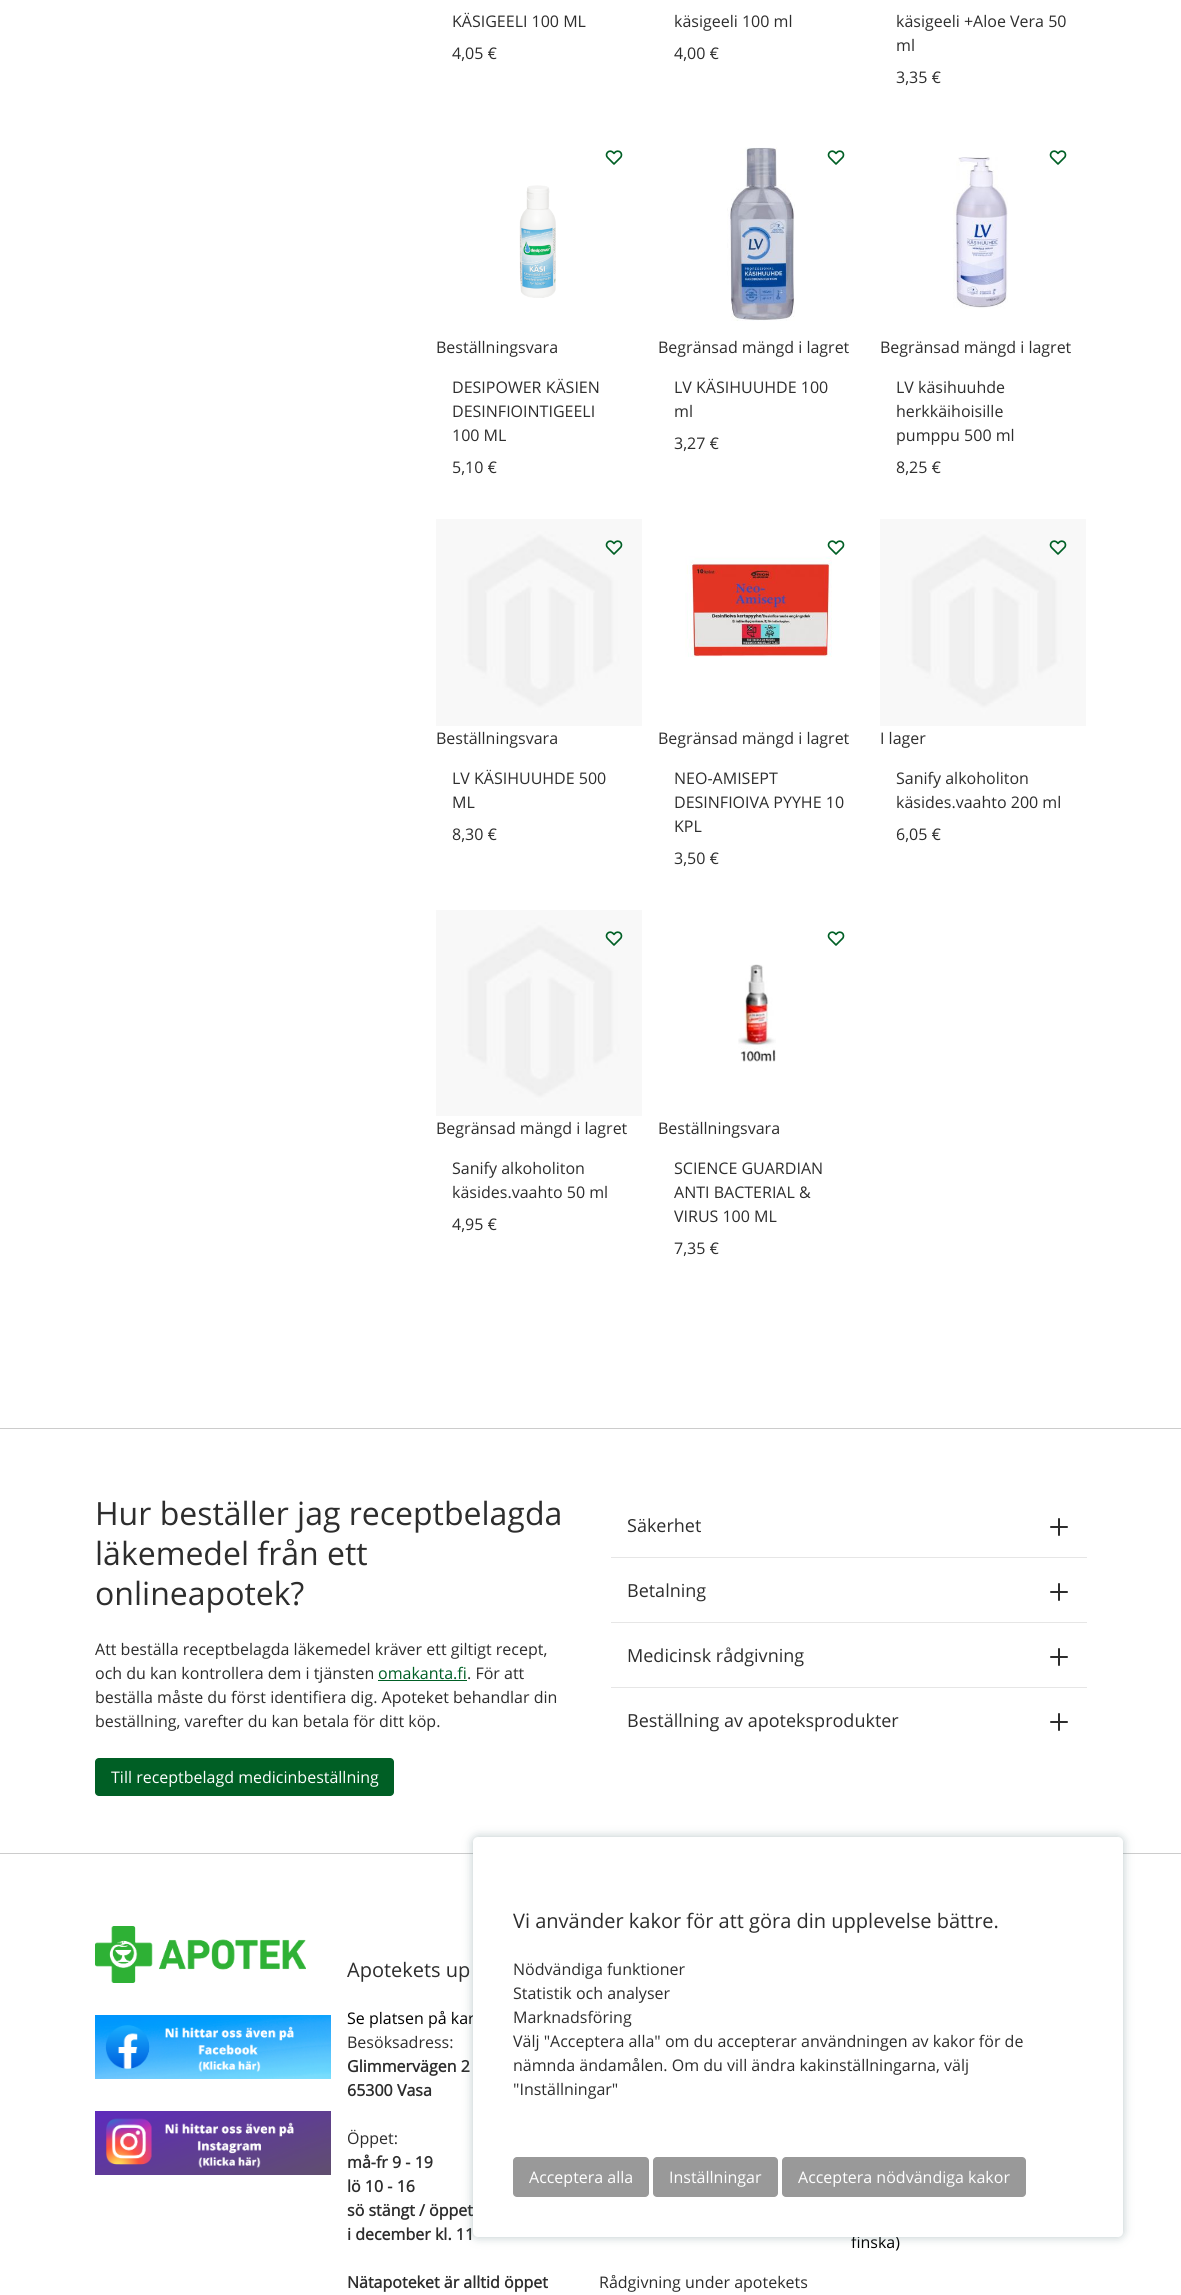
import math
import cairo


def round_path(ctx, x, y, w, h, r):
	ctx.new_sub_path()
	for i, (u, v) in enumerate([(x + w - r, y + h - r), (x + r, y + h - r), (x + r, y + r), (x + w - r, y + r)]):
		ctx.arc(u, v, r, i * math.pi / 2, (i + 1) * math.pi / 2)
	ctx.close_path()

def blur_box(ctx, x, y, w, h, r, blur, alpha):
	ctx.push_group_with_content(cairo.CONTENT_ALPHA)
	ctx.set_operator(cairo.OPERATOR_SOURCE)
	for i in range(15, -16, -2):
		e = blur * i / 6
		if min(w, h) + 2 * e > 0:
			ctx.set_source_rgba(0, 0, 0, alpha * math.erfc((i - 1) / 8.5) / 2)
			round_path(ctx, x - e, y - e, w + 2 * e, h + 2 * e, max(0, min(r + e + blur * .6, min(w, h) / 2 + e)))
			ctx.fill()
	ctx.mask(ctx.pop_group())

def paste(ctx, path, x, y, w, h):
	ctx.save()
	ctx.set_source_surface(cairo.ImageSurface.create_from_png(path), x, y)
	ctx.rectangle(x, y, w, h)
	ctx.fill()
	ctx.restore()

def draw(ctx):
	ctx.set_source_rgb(1, 1, 1)
	ctx.paint()
	ctx.select_font_face('Open Sans')
	ctx.set_font_size(16)
	ctx.set_source_rgb(0.176, 0.176, 0.176)
	for x, y, s in [
		(452, 27, 'KÄSIGEELI 100 ML'),
		(452, 59, '4,05 €'),
		(674, 27, 'käsigeeli 100 ml'),
		(674, 59, '4,00 €'),
		(896, 27, 'käsigeeli +Aloe Vera 50'),
		(896, 51, 'ml'),
		(896, 83, '3,35 €'),
	]:
		ctx.move_to(x, y)
		ctx.show_text(s)
	paste(ctx, 'media/1.png', 605, 150, 18, 15)
	paste(ctx, 'media/2.png', 519, 185, 37, 113)
	for x, y, s in [
		(436, 353, 'Beställningsvara'),
		(452, 393, 'DESIPOWER KÄSIEN'),
		(452, 417, 'DESINFIOINTIGEELI'),
		(452, 441, '100 ML'),
		(452, 473, '5,10 €'),
	]:
		ctx.move_to(x, y)
		ctx.show_text(s)
	paste(ctx, 'media/3.png', 727, 147, 68, 174)
	paste(ctx, 'media/1.png', 827, 150, 18, 15)
	for x, y, s in [
		(658, 353, 'Begränsad mängd i lagret'),
		(674, 393, 'LV KÄSIHUUHDE 100'),
		(674, 417, 'ml'),
		(674, 449, '3,27 €'),
	]:
		ctx.move_to(x, y)
		ctx.show_text(s)
	paste(ctx, 'media/4.png', 953, 157, 55, 152)
	paste(ctx, 'media/1.png', 1049, 150, 18, 15)
	for x, y, s in [
		(880, 353, 'Begränsad mängd i lagret'),
		(896, 393, 'LV käsihuuhde'),
		(896, 417, 'herkkäihoisille'),
		(896, 441, 'pumppu 500 ml'),
		(896, 473, '8,25 €'),
	]:
		ctx.move_to(x, y)
		ctx.show_text(s)
	paste(ctx, 'media/5.png', 436, 519, 206, 207)
	paste(ctx, 'media/6.png', 605, 540, 18, 15)
	for x, y, s in [
		(436, 744, 'Beställningsvara'),
		(452, 784, 'LV KÄSIHUUHDE 500'),
		(452, 808, 'ML'),
		(452, 840, '8,30 €'),
	]:
		ctx.move_to(x, y)
		ctx.show_text(s)
	paste(ctx, 'media/1.png', 827, 540, 18, 15)
	paste(ctx, 'media/7.png', 685, 556, 147, 101)
	for x, y, s in [
		(658, 744, 'Begränsad mängd i lagret'),
		(674, 784, 'NEO-AMISEPT'),
		(674, 808, 'DESINFIOIVA PYYHE 10'),
		(674, 832, 'KPL'),
		(674, 864, '3,50 €'),
	]:
		ctx.move_to(x, y)
		ctx.show_text(s)
	paste(ctx, 'media/5.png', 880, 519, 206, 207)
	paste(ctx, 'media/6.png', 1049, 540, 18, 15)
	for x, y, s in [
		(880, 744, 'I lager'),
		(896, 784, 'Sanify alkoholiton'),
		(896, 808, 'käsides.vaahto 200 ml'),
		(896, 840, '6,05 €'),
	]:
		ctx.move_to(x, y)
		ctx.show_text(s)
	paste(ctx, 'media/8.png', 436, 910, 206, 206)
	paste(ctx, 'media/6.png', 605, 931, 18, 15)
	for x, y, s in [
		(436, 1134, 'Begränsad mängd i lagret'),
		(452, 1174, 'Sanify alkoholiton'),
		(452, 1198, 'käsides.vaahto 50 ml'),
		(452, 1230, '4,95 €'),
	]:
		ctx.move_to(x, y)
		ctx.show_text(s)
	paste(ctx, 'media/1.png', 827, 931, 18, 15)
	paste(ctx, 'media/9.png', 738, 964, 38, 98)
	for x, y, s in [
		(658, 1134, 'Beställningsvara'),
		(674, 1174, 'SCIENCE GUARDIAN'),
		(674, 1198, 'ANTI BACTERIAL &'),
		(674, 1222, 'VIRUS 100 ML'),
		(674, 1254, '7,35 €'),
	]:
		ctx.move_to(x, y)
		ctx.show_text(s)
	ctx.set_source_rgb(0.8, 0.8, 0.8)
	ctx.rectangle(0, 1428, 1181, 1)
	ctx.fill()
	ctx.set_font_size(32)
	ctx.set_source_rgb(0.176, 0.176, 0.176)
	for x, y, s in [
		(95, 1525, 'Hur beställer jag receptbelagda'),
		(95, 1565, 'läkemedel från ett'),
		(95, 1605, 'onlineapotek?'),
	]:
		ctx.move_to(x, y)
		ctx.show_text(s)
	ctx.set_font_size(16)
	ctx.move_to(95, 1655)
	ctx.show_text('Att beställa receptbelagda läkemedel kräver ett giltigt recept,')
	ctx.move_to(95, 1679)
	ctx.show_text('och du kan kontrollera dem i tjänsten')
	ctx.set_source_rgb(0, 0.373, 0.145)
	ctx.move_to(378, 1679)
	ctx.show_text('omakanta.fi')
	ctx.rectangle(378, 1680, 89, 1)
	ctx.fill()
	ctx.set_source_rgb(0.176, 0.176, 0.176)
	for x, y, s in [
		(467, 1679, '. För att'),
		(95, 1703, 'beställa måste du först identifiera dig. Apoteket behandlar din'),
		(95, 1727, 'beställning, varefter du kan betala för ditt köp.'),
	]:
		ctx.move_to(x, y)
		ctx.show_text(s)
	ctx.set_source_rgb(0, 0.373, 0.145)
	round_path(ctx, 95, 1758, 299, 38, 4)
	ctx.fill()
	ctx.set_source_rgb(1, 1, 1)
	ctx.move_to(111, 1783)
	ctx.show_text('Till receptbelagd medicinbeställning')
	ctx.set_source_rgb(0.902, 0.902, 0.902)
	ctx.rectangle(611, 1557, 476, 1)
	ctx.fill()
	ctx.set_font_size(18)
	ctx.set_source_rgb(0.176, 0.176, 0.176)
	ctx.move_to(627, 1532)
	ctx.show_text('Säkerhet')
	ctx.new_path()
	ctx.move_to(1059, 1519)
	ctx.line_to(1059, 1535)
	ctx.move_to(1067, 1527)
	ctx.line_to(1051, 1527)
	ctx.set_line_cap(cairo.LINE_CAP_ROUND)
	ctx.set_line_join(cairo.LINE_JOIN_ROUND)
	ctx.stroke()
	ctx.set_source_rgb(0.902, 0.902, 0.902)
	ctx.rectangle(611, 1622, 476, 1)
	ctx.fill()
	ctx.set_source_rgb(0.176, 0.176, 0.176)
	ctx.move_to(627, 1597)
	ctx.show_text('Betalning')
	ctx.new_path()
	ctx.move_to(1059, 1584)
	ctx.line_to(1059, 1600)
	ctx.move_to(1067, 1592)
	ctx.line_to(1051, 1592)
	ctx.stroke()
	ctx.set_source_rgb(0.902, 0.902, 0.902)
	ctx.rectangle(611, 1687, 476, 1)
	ctx.fill()
	ctx.set_source_rgb(0.176, 0.176, 0.176)
	ctx.move_to(627, 1662)
	ctx.show_text('Medicinsk rådgivning')
	ctx.new_path()
	ctx.move_to(1059, 1649)
	ctx.line_to(1059, 1665)
	ctx.move_to(1067, 1657)
	ctx.line_to(1051, 1657)
	ctx.stroke()
	ctx.move_to(627, 1727)
	ctx.show_text('Beställning av apoteksprodukter')
	ctx.new_path()
	ctx.move_to(1059, 1714)
	ctx.line_to(1059, 1730)
	ctx.move_to(1067, 1722)
	ctx.line_to(1051, 1722)
	ctx.stroke()
	ctx.set_source_rgb(0.8, 0.8, 0.8)
	ctx.rectangle(0, 1853, 1181, 1)
	ctx.fill()
	paste(ctx, 'media/10.png', 95, 1926, 211, 57)
	paste(ctx, 'media/11.png', 95, 2015, 236, 64)
	paste(ctx, 'media/12.png', 95, 2111, 236, 64)
	ctx.set_font_size(20)
	ctx.set_source_rgb(0.176, 0.176, 0.176)
	ctx.move_to(347, 1977)
	ctx.show_text('Apotekets up')
	ctx.set_font_size(16)
	ctx.set_source_rgb(0, 0, 0)
	ctx.move_to(347, 2024)
	ctx.show_text('Se platsen på kar')
	ctx.set_source_rgb(0.176, 0.176, 0.176)
	ctx.move_to(347, 2048)
	ctx.show_text('Besöksadress:')
	ctx.select_font_face('Open Sans', cairo.FONT_SLANT_NORMAL, cairo.FONT_WEIGHT_BOLD)
	ctx.move_to(347, 2072)
	ctx.show_text('Glimmervägen 2')
	ctx.move_to(347, 2096)
	ctx.show_text('65300 Vasa')
	ctx.select_font_face('Open Sans')
	ctx.move_to(347, 2144)
	ctx.show_text('Öppet:')
	ctx.select_font_face('Open Sans', cairo.FONT_SLANT_NORMAL, cairo.FONT_WEIGHT_BOLD)
	for x, y, s in [
		(347, 2168, 'må-fr 9 - 19'),
		(347, 2192, 'lö 10 - 16'),
		(347, 2216, 'sö stängt / öppet'),
		(347, 2240, 'i december kl. 11'),
		(347, 2288, 'Nätapoteket är alltid öppet'),
	]:
		ctx.move_to(x, y)
		ctx.show_text(s)
	ctx.select_font_face('Open Sans')
	ctx.set_source_rgb(0, 0, 0)
	ctx.move_to(851, 2248)
	ctx.show_text('finska)')
	ctx.set_source_rgb(0.176, 0.176, 0.176)
	ctx.move_to(599, 2288)
	ctx.show_text('Rådgivning under apotekets')
	ctx.set_source_rgb(0.329, 0.455, 0.471)
	blur_box(ctx, 473, 1837, 650, 400, 5, 5, 0.4)
	ctx.set_source_rgb(1, 1, 1)
	round_path(ctx, 473, 1837, 650, 400, 5)
	ctx.fill()
	ctx.set_font_size(20)
	ctx.set_source_rgb(0.176, 0.176, 0.176)
	ctx.move_to(513, 1928)
	ctx.show_text('Vi använder kakor för att göra din upplevelse bättre.')
	ctx.set_font_size(16)
	for x, y, s in [
		(513, 1975, 'Nödvändiga funktioner'),
		(513, 1999, 'Statistik och analyser'),
		(513, 2023, 'Marknadsföring'),
		(513, 2047, 'Välj "Acceptera alla" om du accepterar användningen av kakor för de'),
		(513, 2071, 'nämnda ändamålen. Om du vill ändra kakinställningarna, välj'),
		(513, 2095, '"Inställningar"'),
	]:
		ctx.move_to(x, y)
		ctx.show_text(s)
	ctx.set_source_rgb(0.6, 0.6, 0.6)
	round_path(ctx, 513, 2157, 136, 40, 4)
	ctx.fill()
	ctx.set_source_rgb(1, 1, 1)
	ctx.move_to(529, 2183)
	ctx.show_text('Acceptera alla')
	ctx.set_source_rgb(0.6, 0.6, 0.6)
	round_path(ctx, 653, 2157, 125, 40, 4)
	ctx.fill()
	ctx.set_source_rgb(1, 1, 1)
	ctx.move_to(669, 2183)
	ctx.show_text('Inställningar')
	ctx.set_source_rgb(0.6, 0.6, 0.6)
	round_path(ctx, 782, 2157, 244, 40, 4)
	ctx.fill()
	ctx.set_source_rgb(1, 1, 1)
	ctx.move_to(798, 2183)
	ctx.show_text('Acceptera nödvändiga kakor')


surface = cairo.ImageSurface(cairo.FORMAT_RGB24, 1181, 2295)
ctx = cairo.Context(surface)
options = cairo.FontOptions()
options.set_hint_metrics(cairo.HINT_METRICS_OFF)
options.set_hint_style(cairo.HINT_STYLE_NONE)
ctx.set_font_options(options)
ctx.set_miter_limit(4)
draw(ctx)
surface.write_to_png('image.png')
